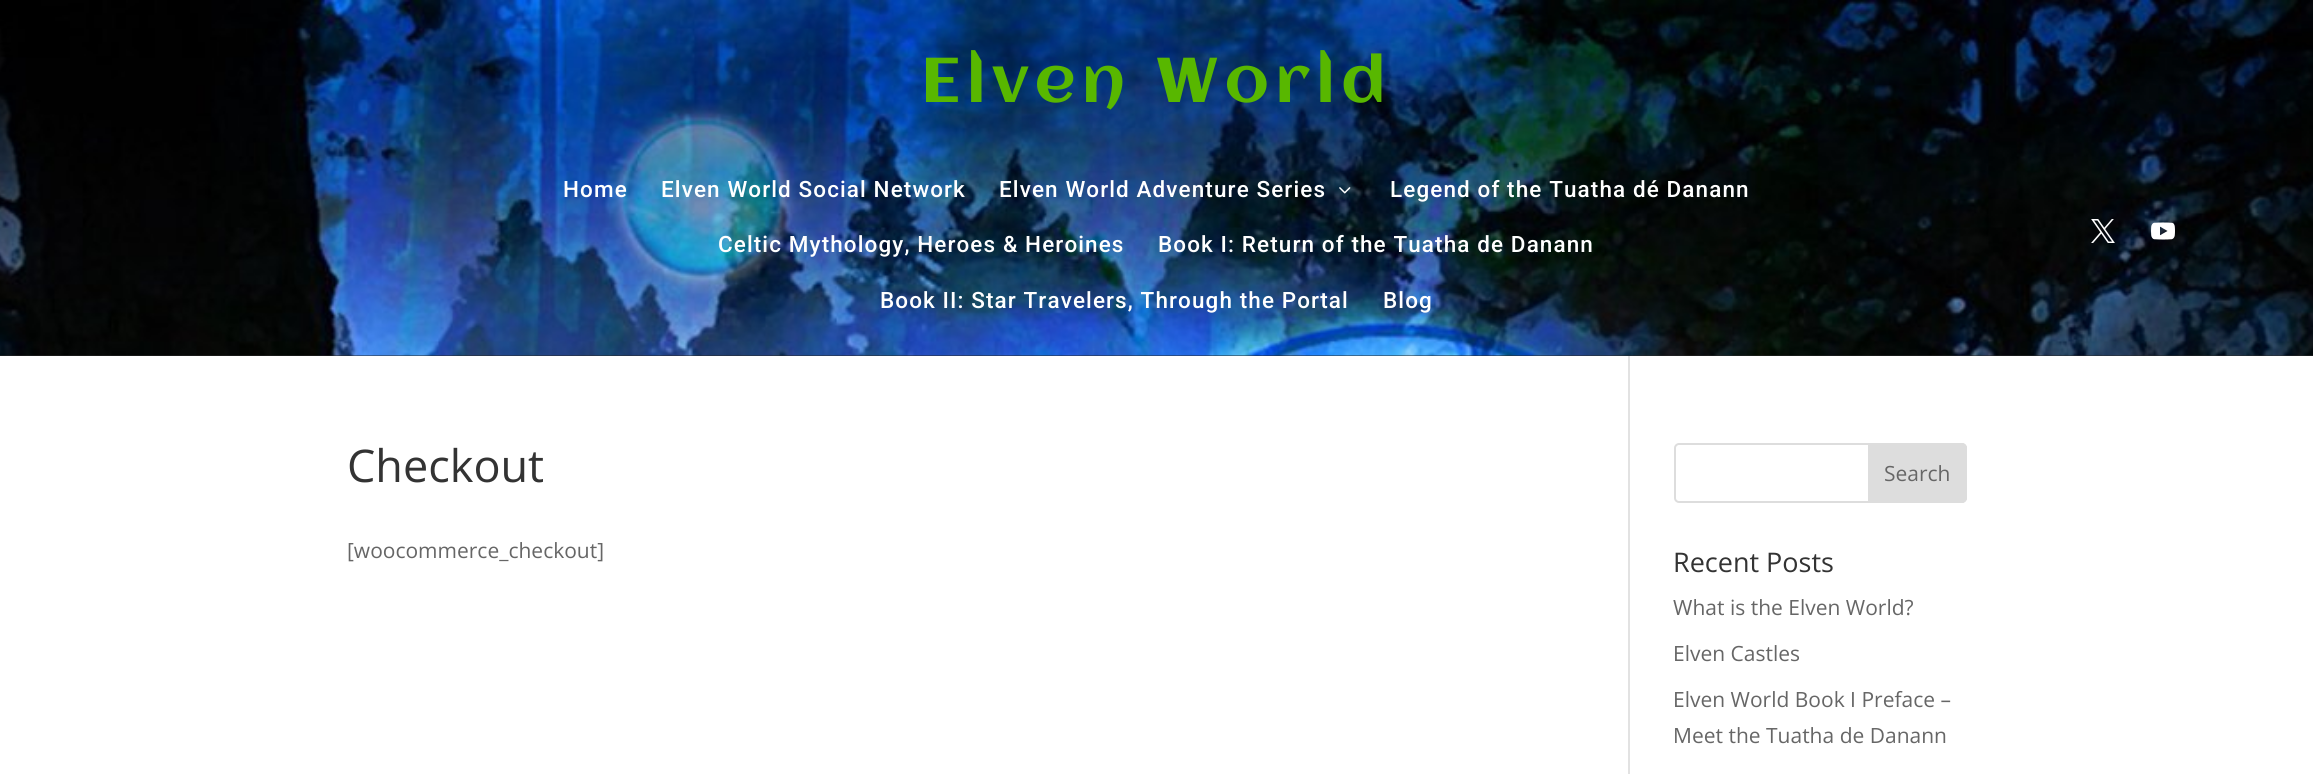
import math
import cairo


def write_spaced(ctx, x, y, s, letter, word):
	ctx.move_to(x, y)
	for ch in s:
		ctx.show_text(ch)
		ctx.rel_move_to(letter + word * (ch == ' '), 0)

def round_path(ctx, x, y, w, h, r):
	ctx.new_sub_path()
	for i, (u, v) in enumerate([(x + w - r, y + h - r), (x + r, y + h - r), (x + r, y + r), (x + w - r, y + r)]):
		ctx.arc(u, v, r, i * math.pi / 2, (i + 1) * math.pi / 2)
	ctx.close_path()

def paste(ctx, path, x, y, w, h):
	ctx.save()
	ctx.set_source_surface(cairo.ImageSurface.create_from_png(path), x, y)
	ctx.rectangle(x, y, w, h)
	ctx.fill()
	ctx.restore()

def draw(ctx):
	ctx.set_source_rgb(1, 1, 1)
	ctx.paint()
	ctx.set_source_rgb(0.169, 0.169, 0.169)
	ctx.rectangle(0, 355, 2313, 1)
	ctx.fill()
	paste(ctx, 'media/1.png', 0, 0, 2313, 356)
	ctx.select_font_face('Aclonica')
	ctx.set_font_size(63)
	ctx.set_source_rgb(0.345, 0.718, 0)
	write_spaced(ctx, 921, 102, 'Elven World', 6.25, 0)
	ctx.select_font_face('Roboto Medium')
	ctx.set_font_size(22.5)
	ctx.set_source_rgb(1, 1, 1)
	for x, y, s in [
		(563, 197, 'Home'),
		(661, 197, 'Elven World Social Network'),
		(999, 197, 'Elven World Adventure Series'),
	]:
		write_spaced(ctx, x, y, s, 1.1, 0)
	paste(ctx, 'media/2.png', 1339, 187, 12, 7)
	for x, y, s in [
		(1390, 197, 'Legend of the Tuatha dé Danann'),
		(718, 252, 'Celtic Mythology, Heroes & Heroines'),
		(1158, 252, 'Book I: Return of the Tuatha de Danann'),
		(880, 308, 'Book II: Star Travelers, Through the Portal'),
		(1383, 308, 'Blog'),
	]:
		write_spaced(ctx, x, y, s, 1.1, 0)
	paste(ctx, 'media/3.png', 2091, 219, 24, 24)
	paste(ctx, 'media/4.png', 2151, 222, 24, 18)
	ctx.set_source_rgb(0.886, 0.886, 0.886)
	ctx.rectangle(1628, 356, 2, 418)
	ctx.fill()
	ctx.select_font_face('Open Sans')
	ctx.set_font_size(45)
	ctx.set_source_rgb(0.2, 0.2, 0.2)
	ctx.move_to(347, 482)
	ctx.show_text('Checkout')
	ctx.set_font_size(21)
	ctx.set_source_rgb(0.4, 0.4, 0.4)
	ctx.move_to(347, 558)
	ctx.show_text('[woocommerce_checkout]')
	round_path(ctx, 1675, 444, 291, 58, 4)
	ctx.set_source_rgb(0.867, 0.867, 0.867)
	ctx.stroke()
	ctx.new_path()
	ctx.move_to(1869, 444)
	ctx.line_to(1962, 444)
	ctx.curve_to(1964, 444, 1966, 446, 1966, 448)
	ctx.line_to(1966, 498)
	ctx.curve_to(1966, 500, 1964, 502, 1962, 502)
	ctx.line_to(1869, 502)
	ctx.close_path()
	ctx.fill_preserve()
	ctx.stroke()
	ctx.set_source_rgb(0.4, 0.4, 0.4)
	ctx.move_to(1884, 481)
	ctx.show_text('Search')
	ctx.set_font_size(27)
	ctx.set_source_rgb(0.2, 0.2, 0.2)
	ctx.move_to(1673, 572)
	ctx.show_text('Recent Posts')
	ctx.set_font_size(21)
	ctx.set_source_rgb(0.4, 0.4, 0.4)
	for x, y, s in [
		(1673, 615, 'What is the Elven World?'),
		(1673, 661, 'Elven Castles'),
		(1673, 707, 'Elven World Book I Preface –'),
		(1673, 743, 'Meet the Tuatha de Danann'),
	]:
		ctx.move_to(x, y)
		ctx.show_text(s)


surface = cairo.ImageSurface(cairo.FORMAT_RGB24, 2313, 774)
ctx = cairo.Context(surface)
options = cairo.FontOptions()
options.set_hint_metrics(cairo.HINT_METRICS_OFF)
options.set_hint_style(cairo.HINT_STYLE_NONE)
ctx.set_font_options(options)
ctx.set_miter_limit(4)
draw(ctx)
surface.write_to_png('image.png')
